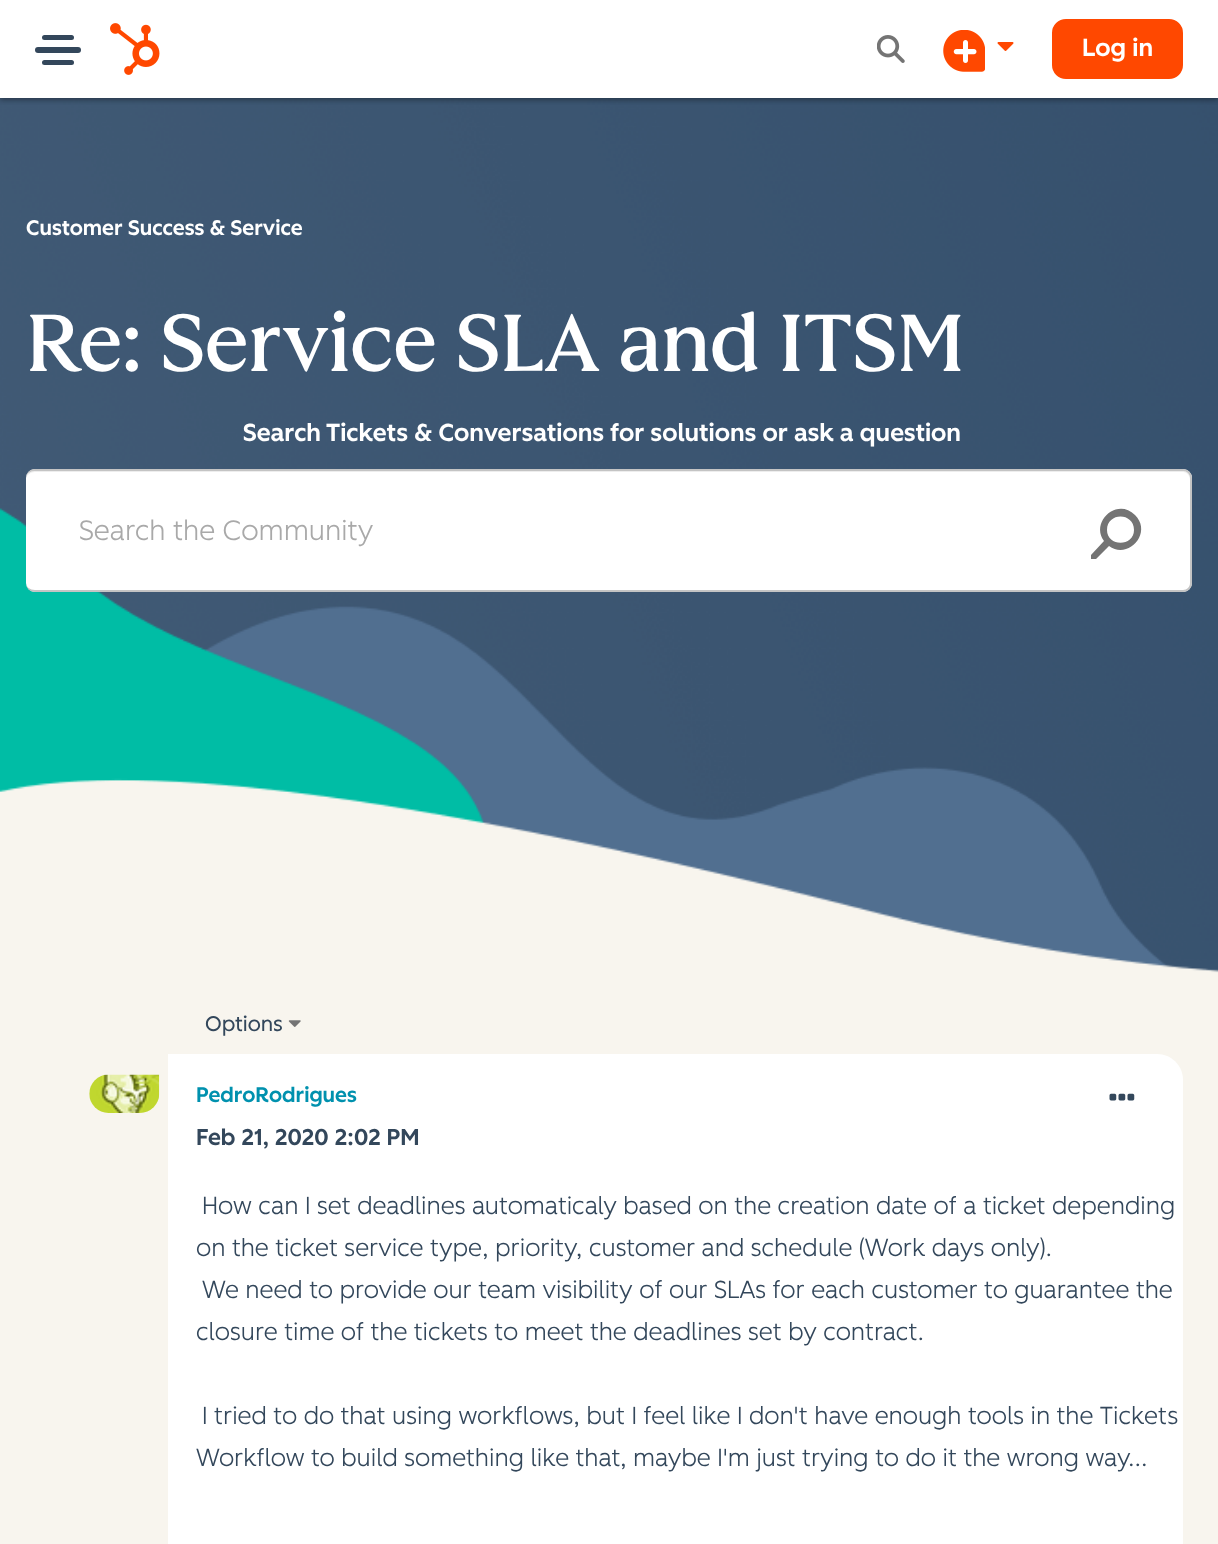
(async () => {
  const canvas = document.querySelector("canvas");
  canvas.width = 1218;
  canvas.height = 1544;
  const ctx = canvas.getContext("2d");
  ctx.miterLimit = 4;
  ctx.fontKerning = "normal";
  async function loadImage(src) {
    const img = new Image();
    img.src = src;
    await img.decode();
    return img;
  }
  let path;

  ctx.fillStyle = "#f8f5ee";
  ctx.fillRect(0, 0, 1218, 1544);
  ctx.drawImage(await loadImage("img/5.png"), 0, 98, 1218, 875);
  ctx.fillStyle = "rgba(0, 0, 0, 0.24)";
  ctx.filter = "blur(2.5px)";
  ctx.beginPath();
  ctx.rect(0, 2, 1218, 98);
  ctx.fill();
  ctx.filter = "none";
  ctx.fillStyle = "rgba(0, 0, 0, 0.12)";
  ctx.filter = "blur(2.5px)";
  ctx.beginPath();
  ctx.rect(0, 2, 1218, 98);
  ctx.fill();
  ctx.filter = "none";
  ctx.fillStyle = "#ffffff";
  ctx.fillRect(0, 0, 1218, 98);
  ctx.fillStyle = "#33475b";
  ctx.beginPath();
  ctx.roundRect(42, 35, 32, 5, 2.5);
  ctx.fill();
  ctx.beginPath();
  ctx.roundRect(35, 47, 46, 6, 3);
  ctx.fill();
  ctx.beginPath();
  ctx.roundRect(42, 60, 32, 5, 2.5);
  ctx.fill();
  ctx.drawImage(await loadImage("img/1.png"), 110, 23, 50, 52);
  ctx.drawImage(await loadImage("img/2.png"), 877, 35, 28, 28);
  ctx.drawImage(await loadImage("img/3.png"), 943, 30, 42, 42);
  ctx.drawImage(await loadImage("img/4.png"), 997, 42, 17, 9);
  ctx.fillStyle = "#ff4800";
  ctx.beginPath();
  ctx.roundRect(1053, 20, 129, 58, 13);
  ctx.fill();
  ctx.strokeStyle = "#ff4800";
  ctx.lineWidth = 2;
  ctx.stroke();
  ctx.fillStyle = "#ffffff";
  ctx.beginPath();
  ctx.roundRect(26, 469, 1166, 123, 9);
  ctx.fill();
  ctx.fillStyle = "rgba(0, 0, 0, 0.07)";
  path = new Path2D("M35 472H1183C1187 472 1190 476 1190 480V478C1190 474 1187 471 1183 471H35C30 471 26 474 26 478C27 475 31 472 35 472Z");
  ctx.fill(path);
  ctx.fillStyle = "#c4c4c4";
  path = new Path2D("M35 469H1183C1188 469 1192 473 1192 478V583C1192 588 1188 592 1183 592H35C30 592 26 588 26 583V478C26 473 30 469 35 469ZM35 471H1183C1187 471 1190 474 1190 478V583C1190 587 1187 590 1183 590H35C30 590 26 587 26 583V478C26 474 30 471 35 471Z");
  ctx.fill(path, "evenodd");
  ctx.fillStyle = "#747474";
  path = new Path2D("M1096 559H1091V555L1104 541C1090 522 1117 497 1135 515C1153 533 1128 560 1109 546ZM1107 530C1107 512 1134 512 1134 530C1134 547 1107 547 1107 530Z");
  ctx.fill(path, "evenodd");
  ctx.drawImage(await loadImage("img/6.png"), 288, 1020, 13, 7);
  ctx.drawImage(await loadImage("img/7.png"), 89, 1074, 71, 39);
  ctx.fillStyle = "#ffffff";
  path = new Path2D("M168 1054H1157C1171.5 1054 1183 1065.5 1183 1080V1544C1183 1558.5 1171.5 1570 1157 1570H194C179.5 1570 168 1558.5 168 1544Z");
  ctx.fill(path);
  ctx.drawImage(await loadImage("img/8.png"), 1109, 1093, 26, 8);
  ctx.font = "500 24.5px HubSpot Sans";
  ctx.fillText("Log in", 1082, 56);
  ctx.font = "500 21px HubSpot Sans";
  ctx.fillText("Customer Success & Service", 26, 235);
  ctx.font = "500 80.5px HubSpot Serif";
  ctx.fillText("Re: Service SLA and ITSM", 26, 371);
  ctx.font = "500 24.5px HubSpot Sans";
  ctx.fillText("Search", 243, 441);
  ctx.fillText("Tickets & Conversations for solutions or ask a question", 326, 441);
  ctx.font = "300 28px HubSpot Sans";
  ctx.fillStyle = "#a9a9a9";
  ctx.fillText("Search the Community", 79, 540);
  ctx.font = "21px HubSpot Sans";
  ctx.fillStyle = "#33475b";
  ctx.fillText("Options", 205, 1031);
  ctx.font = "500 21px HubSpot Sans";
  ctx.fillStyle = "#0091ae";
  ctx.fillText("PedroRodrigues", 196, 1102);
  ctx.font = "500 22.75px HubSpot Sans";
  ctx.fillStyle = "#33475b";
  ctx.fillText("Feb 21, 2020 2:02 PM", 196, 1145);
  ctx.font = "300 24.5px HubSpot Sans";
  for (const [text, x, y] of [
    ["How can I set deadlines automaticaly based on the creation date of a ticket depending", 202, 1214],
    ["on the ticket service type, priority, customer and schedule (Work days only).", 196, 1256],
    ["We need to provide our team visibility of our SLAs for each customer to guarantee the", 202, 1298],
    ["closure time of the tickets to meet the deadlines set by contract.", 196, 1340],
    ["I tried to do that using workflows, but I feel like I don't have enough tools in the Tickets", 202, 1424],
    ["Workflow to build something like that, maybe I'm just trying to do it the wrong way...", 196, 1466],
  ]) {
    ctx.fillText(text, x, y);
  }
})();
